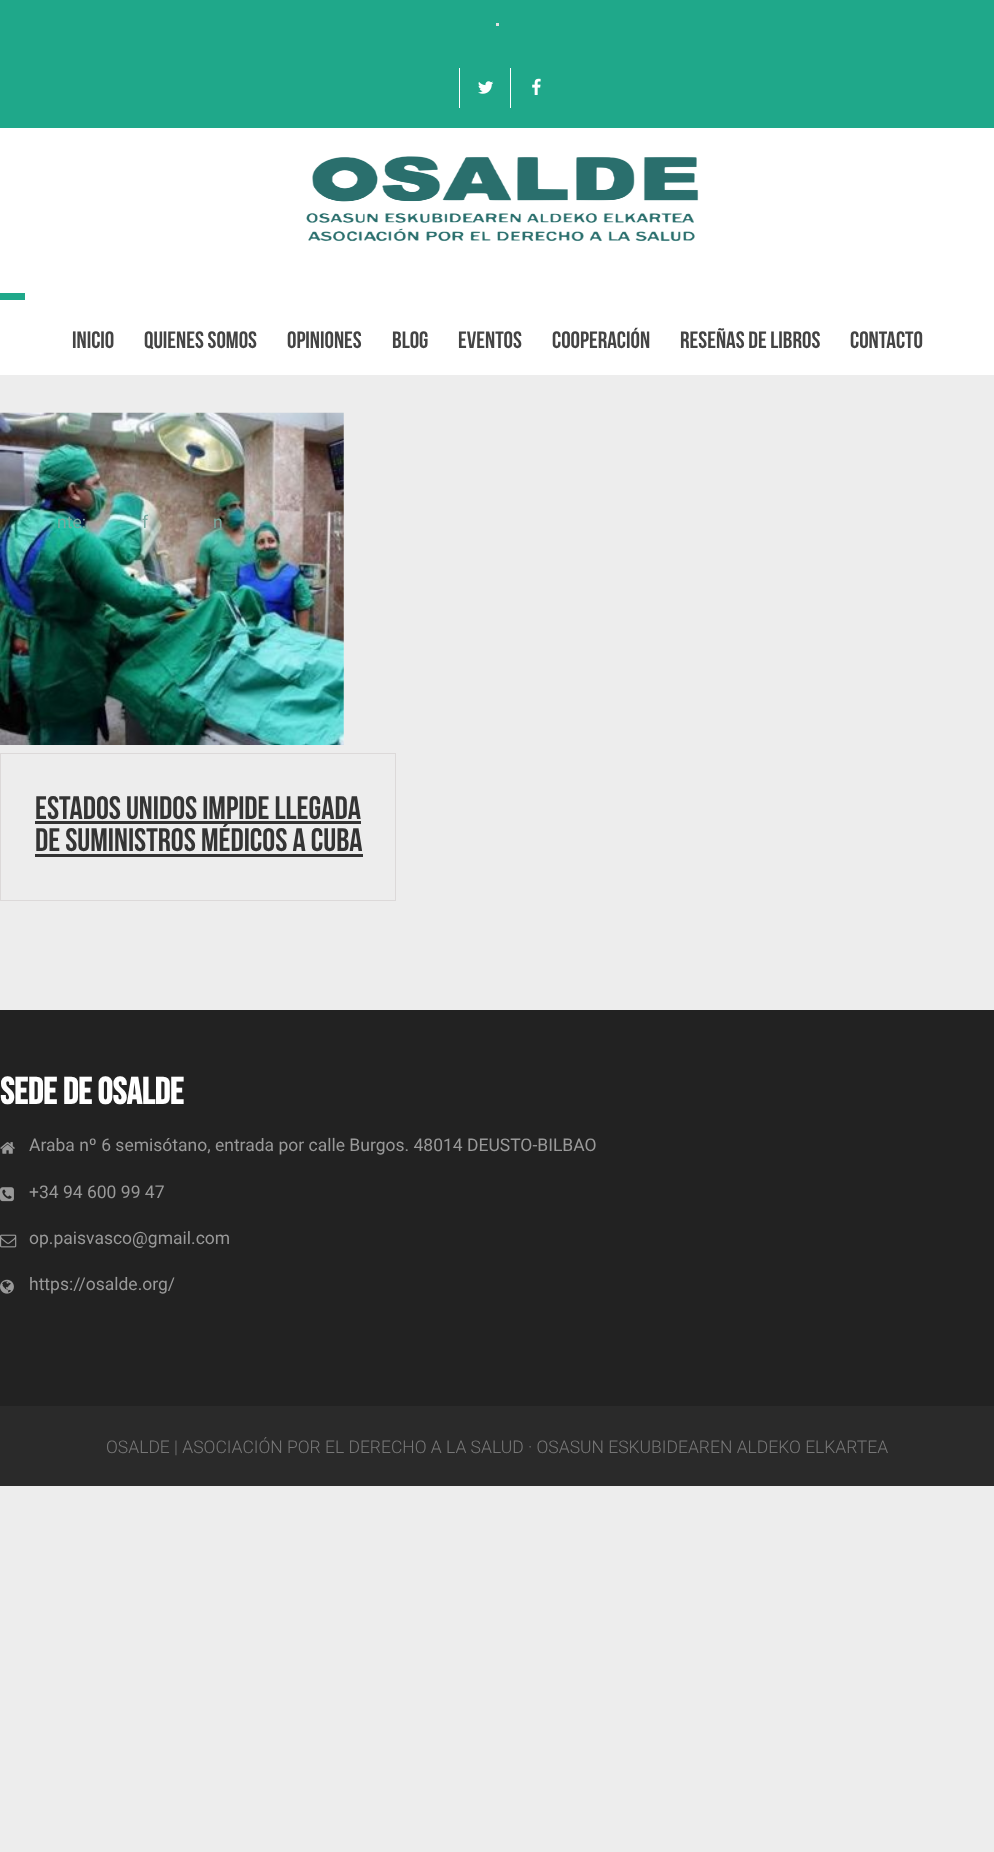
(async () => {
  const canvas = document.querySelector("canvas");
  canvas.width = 994;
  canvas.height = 1852;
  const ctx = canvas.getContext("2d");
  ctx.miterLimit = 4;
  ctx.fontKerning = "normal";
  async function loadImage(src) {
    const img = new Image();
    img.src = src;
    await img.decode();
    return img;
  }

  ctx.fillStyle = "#ededed";
  ctx.fillRect(0, 0, 994, 1852);
  for (const [x, y, w, h, color] of [
    [0, 0, 994, 128, "#1fa88a"],
    [496, 23, 3, 3, "#e1e1e1"],
    [459, 68, 1, 40, "#ffffff"],
  ]) {
    ctx.fillStyle = color;
    ctx.fillRect(x, y, w, h);
  }
  ctx.drawImage(await loadImage("img/1.png"), 478, 81, 16, 13);
  ctx.fillRect(510, 68, 1, 40);
  ctx.drawImage(await loadImage("img/2.png"), 532, 78, 9, 17);
  ctx.fillRect(0, 128, 994, 247);
  ctx.drawImage(await loadImage("img/3.png"), 306, 156, 393, 86);
  ctx.fillStyle = "#1fa88a";
  ctx.fillRect(0, 293, 25, 7);
  ctx.drawImage(await loadImage("img/4.png"), 0, 412, 344, 333);
  ctx.strokeStyle = "#dcd9d9";
  ctx.strokeRect(0.5, 753.5, 395, 147);
  for (const [x, y, w, h, color] of [
    [35, 821, 326, 3, "#343434"],
    [35, 854, 328, 3, "#343434"],
    [0, 1010, 994, 396, "#222222"],
  ]) {
    ctx.fillStyle = color;
    ctx.fillRect(x, y, w, h);
  }
  ctx.drawImage(await loadImage("img/5.png"), 0, 1142, 15, 12);
  ctx.drawImage(await loadImage("img/6.png"), 0, 1187, 14, 15);
  ctx.drawImage(await loadImage("img/7.png"), 0, 1234, 17, 14);
  ctx.drawImage(await loadImage("img/8.png"), 0, 1279, 14, 15);
  ctx.fillStyle = "#2a2a2a";
  ctx.fillRect(0, 1406, 994, 80);
  ctx.font = "23.75px Bebas Neue";
  ctx.fillStyle = "#444444";
  for (const [text, x, y] of [
    ["Inicio", 72, 348],
    ["Quienes Somos", 144, 348],
    ["OPINIONES", 287, 348],
    ["BLOG", 392, 348],
    ["Eventos", 458, 348],
    ["Cooperación", 552, 348],
    ["Reseñas de libros", 680, 348],
    ["Contacto", 850, 348],
  ]) {
    ctx.fillText(text, x, y);
  }
  ctx.font = "17.5px Roboto";
  ctx.fillStyle = "#78a99f";
  for (const [text, x, y] of [
    ["nte:", 57, 528],
    ["f", 142, 528],
    ["n", 213, 528],
  ]) {
    ctx.fillText(text, x, y);
  }
  ctx.font = "32.5px Bebas Neue";
  ctx.fillStyle = "#343434";
  ctx.fillText("Estados Unidos impide llegada", 35, 819);
  ctx.fillText("de suministros médicos a Cuba", 35, 851);
  ctx.font = "bold 37.5px Bebas Neue";
  ctx.fillStyle = "#ffffff";
  ctx.fillText("Sede de OSALDE", 0, 1104);
  ctx.font = "17.5px Roboto";
  ctx.fillStyle = "#999999";
  for (const [text, x, y] of [
    ["Araba nº 6 semisótano, entrada por calle Burgos. 48014 DEUSTO-BILBAO", 29, 1151],
    ["+34 94 600 99 47", 29, 1198],
    ["op.paisvasco@gmail.com", 29, 1244],
    ["https://osalde.org/", 29, 1290],
  ]) {
    ctx.fillText(text, x, y);
  }
  ctx.font = "300 17.5px Roboto";
  ctx.fillStyle = "#777777";
  ctx.fillText("OSALDE | ASOCIACIÓN POR EL DERECHO A LA SALUD · OSASUN ESKUBIDEAREN ALDEKO ELKARTEA", 106, 1453);
})();
